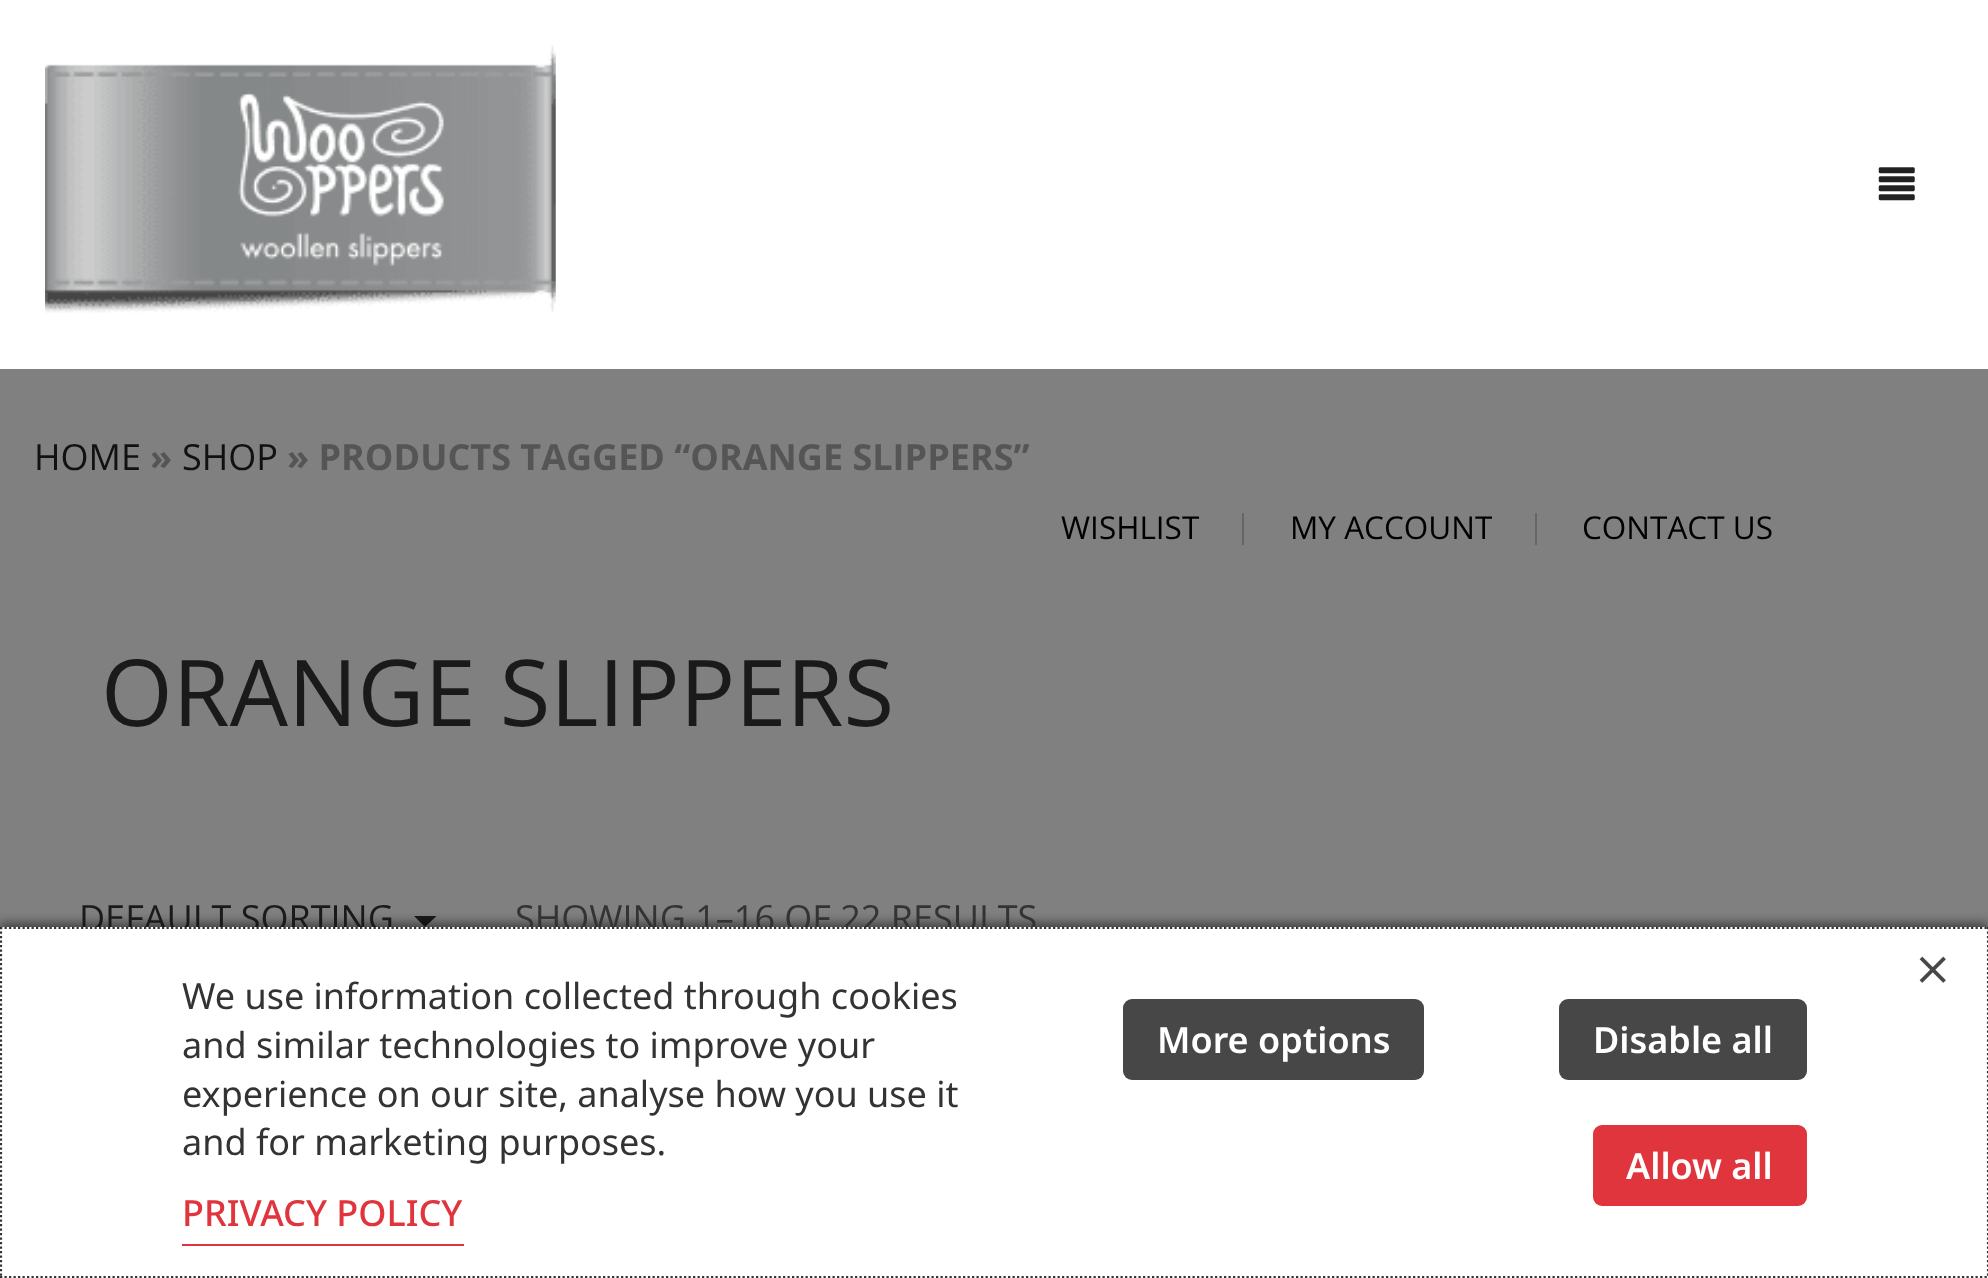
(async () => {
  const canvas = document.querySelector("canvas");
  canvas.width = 1988;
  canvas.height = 1278;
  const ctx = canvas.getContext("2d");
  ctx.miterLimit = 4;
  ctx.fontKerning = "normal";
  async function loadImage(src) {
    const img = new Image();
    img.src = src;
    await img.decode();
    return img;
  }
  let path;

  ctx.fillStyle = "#808080";
  ctx.fillRect(0, 0, 1988, 1278);
  ctx.fillStyle = "#ffffff";
  ctx.fillRect(0, 0, 1988, 369);
  ctx.drawImage(await loadImage("img/1.png"), 45, 45, 511, 268);
  ctx.drawImage(await loadImage("img/2.png"), 1878, 167, 37, 34);
  ctx.fillStyle = "#666666";
  ctx.fillRect(1242, 513, 2, 32);
  ctx.fillRect(1535, 513, 2, 32);
  ctx.fillStyle = "#1a1a1a";
  path = new Path2D("M414 916H436.5L425 927Z");
  ctx.fill(path);
  ctx.fillStyle = "rgba(0, 0, 0, 0.5)";
  ctx.filter = "blur(5.5px)";
  ctx.beginPath();
  ctx.rect(0, 923, 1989, 351);
  ctx.fill();
  ctx.filter = "none";
  ctx.font = "36px Open Sans";
  ctx.fillStyle = "#111111";
  ctx.fillText("HOME", 34, 470);
  ctx.font = "bold 36px Open Sans";
  ctx.fillStyle = "#555555";
  ctx.fillText("»", 150, 470);
  ctx.font = "36px Open Sans";
  ctx.fillStyle = "#111111";
  ctx.fillText("SHOP", 182, 470);
  ctx.font = "bold 36px Open Sans";
  ctx.fillStyle = "#555555";
  ctx.fillText("» PRODUCTS TAGGED “ORANGE SLIPPERS”", 287, 470);
  ctx.font = "31.5px Open Sans";
  ctx.fillStyle = "#000000";
  for (const [text, x, y] of [
    ["WISHLIST", 1061, 539],
    ["MY ACCOUNT", 1290, 539],
    ["CONTACT US", 1582, 539],
  ]) {
    ctx.fillText(text, x, y);
  }
  ctx.font = "92.25px Open Sans";
  ctx.fillStyle = "#1a1a1a";
  ctx.fillText("ORANGE SLIPPERS", 101, 726);
  ctx.font = "36px Open Sans";
  ctx.fillText("DEFAULT SORTING", 79, 931);
  ctx.fillStyle = "#333333";
  ctx.fillText("SHOWING 1–16 OF 22 RESULTS", 515, 931);
  ctx.fillStyle = "#ffffff";
  ctx.fillRect(0, 927, 1988, 351);
  path = new Path2D("M0 928H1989");
  ctx.strokeStyle = "#333333";
  ctx.lineWidth = 2.2;
  ctx.setLineDash([2.25, 2.25]);
  ctx.stroke(path);
  path = new Path2D("M1988 927V1278");
  ctx.stroke(path);
  path = new Path2D("M0 1277H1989");
  ctx.stroke(path);
  path = new Path2D("M1 927V1278");
  ctx.stroke(path);
  ctx.drawImage(await loadImage("img/3.png"), 1919, 956, 27, 27);
  ctx.font = "36px Noto Sans";
  ctx.fillStyle = "#333333";
  for (const [text, x, y] of [
    ["We use information collected through cookies", 182, 1009],
    ["and similar technologies to improve your", 182, 1058],
    ["experience on our site, analyse how you use it", 182, 1107],
    ["and for marketing purposes.", 182, 1155],
  ]) {
    ctx.fillText(text, x, y);
  }
  ctx.font = "500 36px Noto Sans";
  ctx.fillStyle = "#e0353c";
  ctx.fillText("PRIVACY POLICY", 182, 1226);
  ctx.fillRect(182, 1244, 282, 2);
  ctx.fillStyle = "#474747";
  ctx.beginPath();
  ctx.roundRect(1123, 999, 301, 81, 9);
  ctx.fill();
  ctx.font = "600 36px Noto Sans";
  ctx.fillStyle = "#ffffff";
  ctx.fillText("More options", 1157, 1053);
  ctx.fillStyle = "#474747";
  ctx.beginPath();
  ctx.roundRect(1559, 999, 248, 81, 9);
  ctx.fill();
  ctx.fillStyle = "#ffffff";
  ctx.fillText("Disable all", 1593, 1053);
  ctx.fillStyle = "#e0353c";
  ctx.beginPath();
  ctx.roundRect(1593, 1125, 214, 81, 9);
  ctx.fill();
  ctx.fillStyle = "#ffffff";
  ctx.fillText("Allow all", 1626, 1179);
})();
